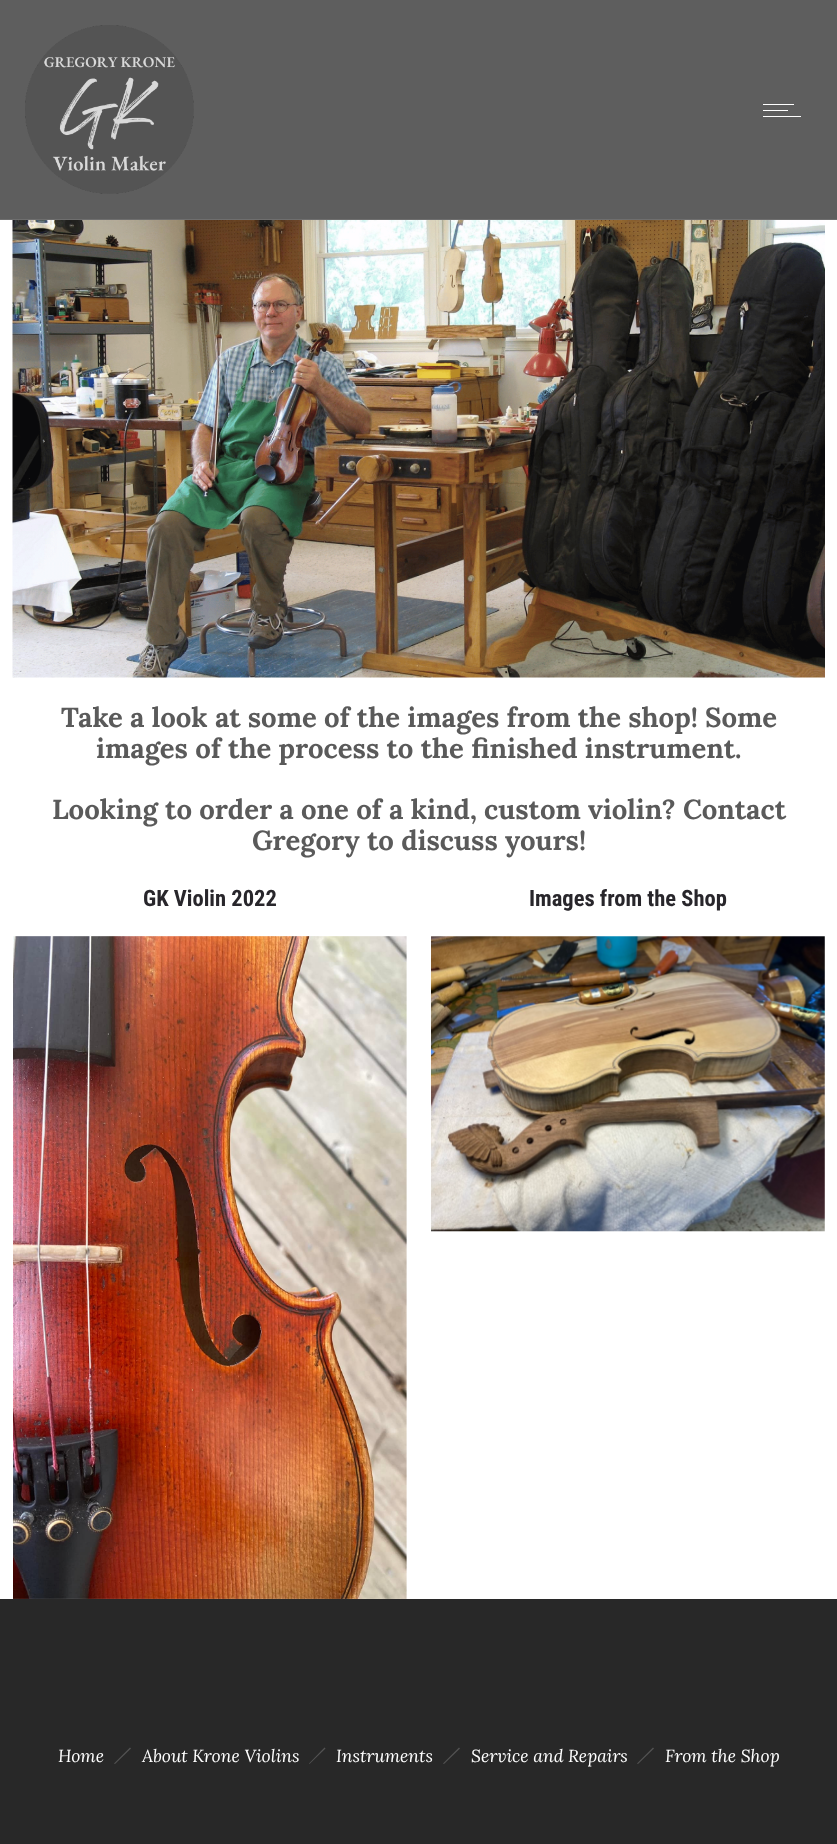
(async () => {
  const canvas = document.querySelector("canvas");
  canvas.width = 837;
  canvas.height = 1844;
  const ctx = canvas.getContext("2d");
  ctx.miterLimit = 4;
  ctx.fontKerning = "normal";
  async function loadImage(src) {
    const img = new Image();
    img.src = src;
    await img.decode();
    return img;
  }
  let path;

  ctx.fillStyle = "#ffffff";
  ctx.fillRect(0, 0, 837, 1844);
  ctx.fillStyle = "#5e5e5e";
  ctx.fillRect(0, 0, 837, 219);
  ctx.fillStyle = "#6e6e6e";
  ctx.fillRect(0, 219, 837, 1);
  ctx.drawImage(await loadImage("img/1.png"), 25, 25, 169, 169);
  for (const [x, y, w, h, color] of [
    [763, 104, 31, 1, "#ffffff"],
    [763, 110, 25, 1, "#ffffff"],
    [763, 116, 38, 1, "#ffffff"],
  ]) {
    ctx.fillStyle = color;
    ctx.fillRect(x, y, w, h);
  }
  ctx.drawImage(await loadImage("img/2.png"), 12, 220, 813, 458);
  ctx.drawImage(await loadImage("img/3.png"), 13, 936, 394, 663);
  ctx.drawImage(await loadImage("img/4.png"), 431, 936, 394, 296);
  ctx.fillStyle = "#282828";
  ctx.fillRect(0, 1599, 837, 245);
  ctx.fillStyle = "#535353";
  path = new Path2D("M130 1747.5L131 1748.5L115 1764L114 1763.5Z");
  ctx.fill(path);
  path = new Path2D("M324.5 1747.5L325.5 1748.5L309.5 1764L309 1763.5Z");
  ctx.fill(path);
  path = new Path2D("M459 1747.5L460 1748.5L444 1764L443 1763.5Z");
  ctx.fill(path);
  path = new Path2D("M653 1747.5L654 1748.5L638 1764L637 1763.5Z");
  ctx.fill(path);
  ctx.font = "bold 27.5px Lora";
  ctx.fillStyle = "#5a5a5a";
  for (const [text, x, y] of [
    ["Take a look at some of the images from the shop! Some", 61, 727],
    ["images of the process to the finished instrument.", 96, 758],
    ["Looking to order a one of a kind, custom violin? Contact", 52, 819],
    ["Gregory to discuss yours!", 252, 850],
  ]) {
    ctx.fillText(text, x, y);
  }
  ctx.font = "bold 22.5px Roboto Condensed";
  ctx.fillStyle = "#28262b";
  ctx.fillText("GK Violin 2022", 143, 906);
  ctx.fillText("Images from the Shop", 529, 906);
  ctx.font = "italic 17.5px Lora";
  ctx.fillStyle = "#ffffff";
  for (const [text, x, y] of [
    ["Home", 58, 1762],
    ["About Krone Violins", 142, 1762],
    ["Instruments", 336, 1762],
    ["Service and Repairs", 471, 1762],
    ["From the Shop", 665, 1762],
  ]) {
    ctx.fillText(text, x, y);
  }
})();
